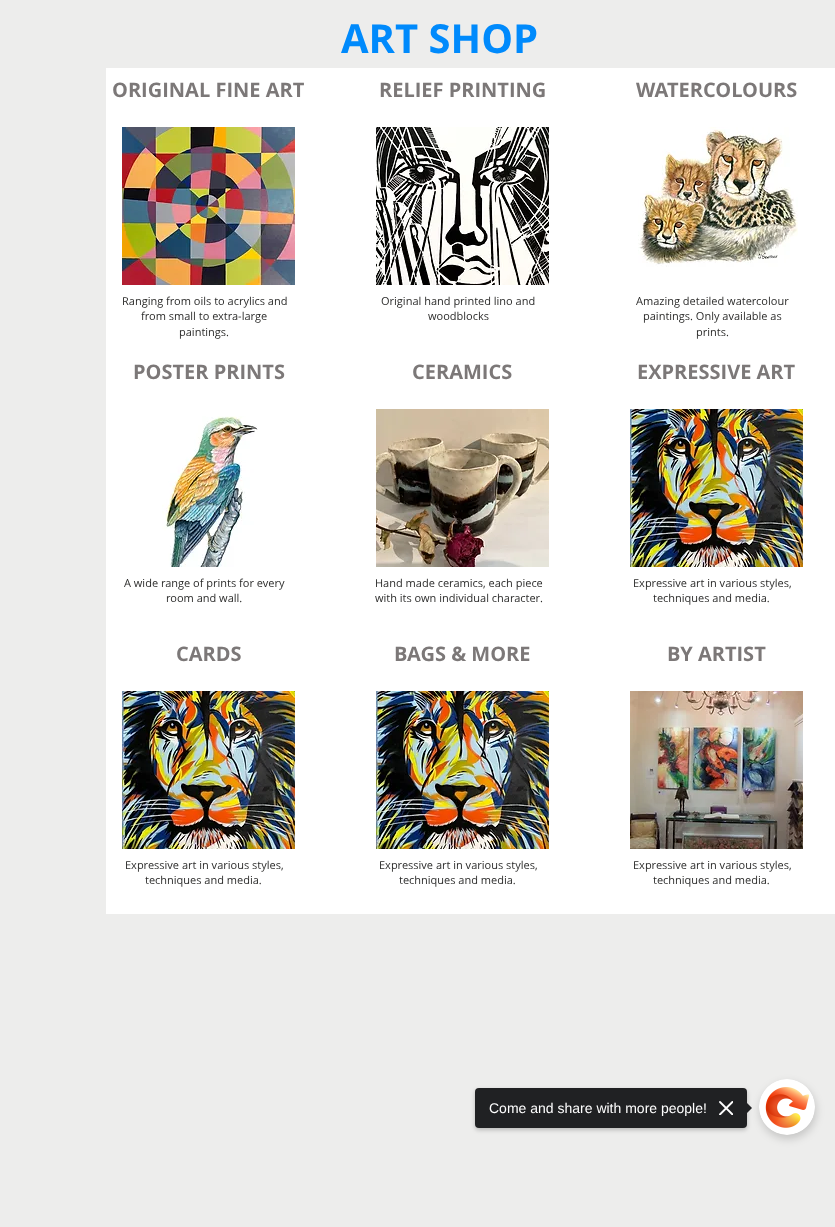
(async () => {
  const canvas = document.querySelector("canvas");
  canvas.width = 835;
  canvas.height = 1227;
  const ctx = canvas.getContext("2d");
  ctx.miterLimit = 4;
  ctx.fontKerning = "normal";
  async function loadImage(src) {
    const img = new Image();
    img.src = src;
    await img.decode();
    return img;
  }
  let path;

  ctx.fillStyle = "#ededec";
  ctx.fillRect(0, 0, 835, 1227);
  ctx.fillStyle = "#ffffff";
  ctx.fillRect(106, 68, 254, 846);
  ctx.drawImage(await loadImage("img/1.png"), 122, 127, 173, 158);
  ctx.drawImage(await loadImage("img/2.png"), 162, 416, 96, 151);
  ctx.drawImage(await loadImage("img/3.png"), 122, 691, 173, 158);
  ctx.fillRect(360, 68, 254, 846);
  ctx.drawImage(await loadImage("img/4.png"), 376, 127, 173, 158);
  ctx.drawImage(await loadImage("img/5.png"), 376, 409, 173, 158);
  ctx.drawImage(await loadImage("img/3.png"), 376, 691, 173, 158);
  ctx.fillRect(614, 68, 221, 846);
  ctx.drawImage(await loadImage("img/6.png"), 638, 127, 160, 140);
  ctx.drawImage(await loadImage("img/3.png"), 630, 409, 173, 158);
  ctx.drawImage(await loadImage("img/7.png"), 630, 691, 173, 158);
  ctx.fillStyle = "rgba(0, 0, 0, 0.17)";
  ctx.filter = "blur(4.5px)";
  ctx.beginPath();
  ctx.roundRect(760, 1083, 56, 56, 28);
  ctx.fill();
  ctx.filter = "none";
  ctx.fillStyle = "rgba(0, 0, 0, 0.22)";
  ctx.filter = "blur(2px)";
  ctx.beginPath();
  ctx.roundRect(475, 1090, 272, 40, 4);
  ctx.fill();
  ctx.filter = "none";
  ctx.fillStyle = "#202123";
  ctx.beginPath();
  ctx.roundRect(475, 1088, 272, 40, 4);
  ctx.fill();
  ctx.drawImage(await loadImage("img/8.png"), 719, 1101, 14, 14);
  path = new Path2D("M745 1115V1101L752 1108Z");
  ctx.fill(path);
  ctx.drawImage(await loadImage("img/9.png"), 759, 1079, 56, 56);
  ctx.font = "bold 40px Open Sans";
  ctx.fillStyle = "#008afc";
  ctx.fillText("ART SHOP", 341, 53);
  ctx.font = "bold 20px Open Sans";
  ctx.fillStyle = "#7c7878";
  ctx.fillText("ORIGINAL FINE ART", 112, 97);
  ctx.font = "11px Open Sans";
  ctx.fillStyle = "#2c2c2b";
  for (const [text, x, y] of [
    ["Ranging from oils to acrylics and", 122, 305],
    ["from small to extra-large", 141, 320],
    ["paintings.", 179, 336],
  ]) {
    ctx.fillText(text, x, y);
  }
  ctx.font = "bold 20px Open Sans";
  ctx.fillStyle = "#7c7878";
  ctx.fillText("POSTER PRINTS", 133, 379);
  ctx.font = "11px Open Sans";
  ctx.fillStyle = "#2c2c2b";
  ctx.fillText("A wide range of prints for every", 124, 587);
  ctx.fillText("room and wall.", 166, 602);
  ctx.font = "bold 20px Open Sans";
  ctx.fillStyle = "#7c7878";
  ctx.fillText("CARDS", 176, 661);
  ctx.font = "11px Open Sans";
  ctx.fillStyle = "#2c2c2b";
  ctx.fillText("Expressive art in various styles,", 125, 869);
  ctx.fillText("techniques and media.", 145, 884);
  ctx.font = "bold 20px Open Sans";
  ctx.fillStyle = "#7c7878";
  ctx.fillText("RELIEF PRINTING", 379, 97);
  ctx.font = "11px Open Sans";
  ctx.fillStyle = "#2c2c2b";
  ctx.fillText("Original hand printed lino and", 381, 305);
  ctx.fillText("woodblocks", 428, 320);
  ctx.font = "bold 20px Open Sans";
  ctx.fillStyle = "#7c7878";
  ctx.fillText("CERAMICS", 412, 379);
  ctx.font = "11px Open Sans";
  ctx.fillStyle = "#2c2c2b";
  ctx.fillText("Hand made ceramics, each piece", 375, 587);
  ctx.fillText("with its own individual character.", 375, 602);
  ctx.font = "bold 20px Open Sans";
  ctx.fillStyle = "#7c7878";
  ctx.fillText("BAGS & MORE", 394, 661);
  ctx.font = "11px Open Sans";
  ctx.fillStyle = "#2c2c2b";
  ctx.fillText("Expressive art in various styles,", 379, 869);
  ctx.fillText("techniques and media.", 399, 884);
  ctx.font = "bold 20px Open Sans";
  ctx.fillStyle = "#7c7878";
  ctx.fillText("WATERCOLOURS", 636, 97);
  ctx.font = "11px Open Sans";
  ctx.fillStyle = "#2c2c2b";
  for (const [text, x, y] of [
    ["Amazing detailed watercolour", 636, 305],
    ["paintings. Only available as", 643, 320],
    ["prints.", 696, 336],
  ]) {
    ctx.fillText(text, x, y);
  }
  ctx.font = "bold 20px Open Sans";
  ctx.fillStyle = "#7c7878";
  ctx.fillText("EXPRESSIVE ART", 637, 379);
  ctx.font = "11px Open Sans";
  ctx.fillStyle = "#2c2c2b";
  ctx.fillText("Expressive art in various styles,", 633, 587);
  ctx.fillText("techniques and media.", 653, 602);
  ctx.font = "bold 20px Open Sans";
  ctx.fillStyle = "#7c7878";
  ctx.fillText("BY ARTIST", 667, 661);
  ctx.font = "11px Open Sans";
  ctx.fillStyle = "#2c2c2b";
  ctx.fillText("Expressive art in various styles,", 633, 869);
  ctx.fillText("techniques and media.", 653, 884);
  ctx.font = "14px Liberation Sans";
  ctx.fillStyle = "#ffffff";
  ctx.fillText("Come and share with more people!", 489, 1113);
})();
